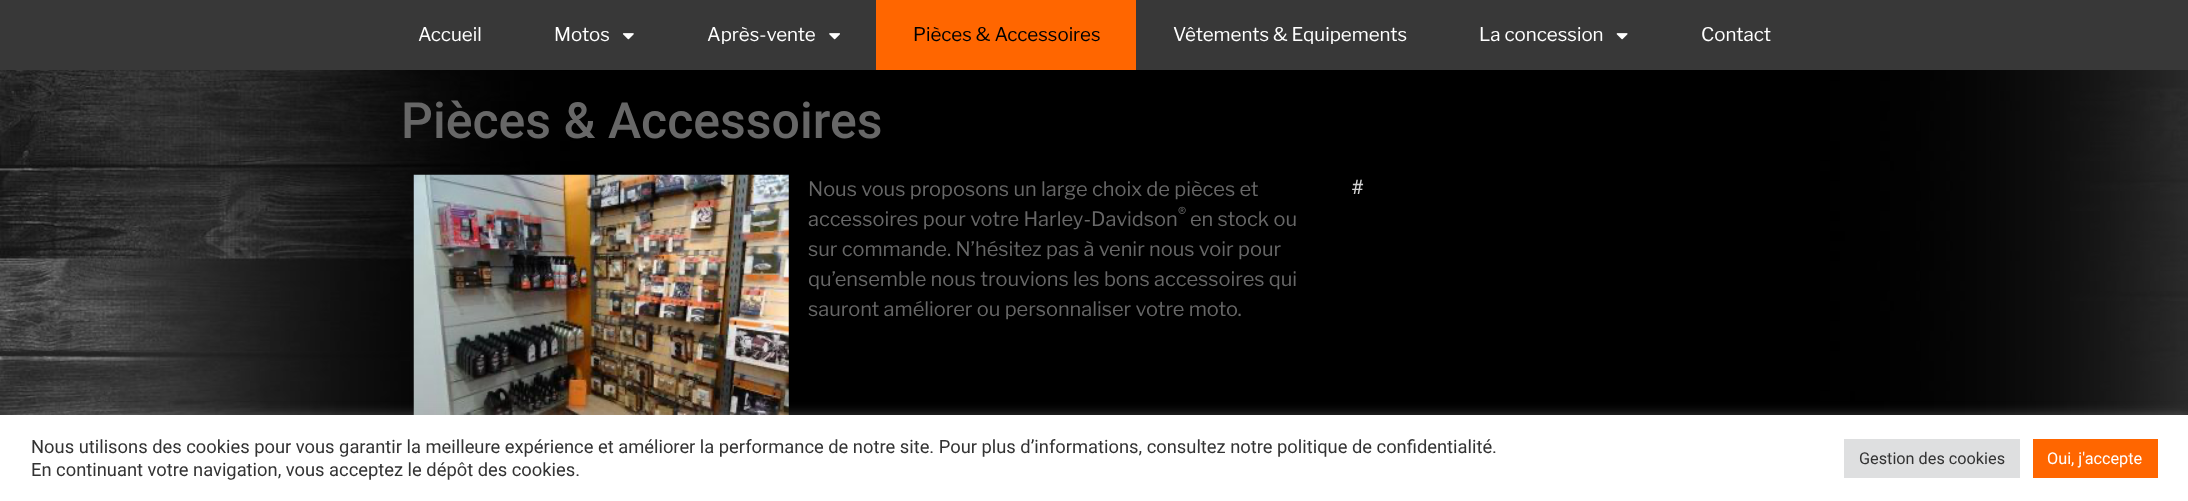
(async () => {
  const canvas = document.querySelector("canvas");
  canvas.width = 2188;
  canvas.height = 501;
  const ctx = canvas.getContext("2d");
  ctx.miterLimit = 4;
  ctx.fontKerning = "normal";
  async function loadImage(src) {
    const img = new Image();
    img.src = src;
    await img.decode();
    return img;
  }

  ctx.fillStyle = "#ffffff";
  ctx.fillRect(0, 0, 2188, 501);
  ctx.drawImage(await loadImage("img/1.png"), 0, 70, 2188, 345);
  ctx.fillStyle = "#383838";
  ctx.fillRect(0, 0, 2188, 70);
  ctx.drawImage(await loadImage("img/2.png"), 622, 33, 12, 7);
  ctx.drawImage(await loadImage("img/3.png"), 829, 33, 11, 7);
  ctx.fillStyle = "#ff6600";
  ctx.fillRect(876, 0, 260, 70);
  ctx.drawImage(await loadImage("img/4.png"), 1616, 33, 12, 7);
  ctx.drawImage(await loadImage("img/5.png"), 413, 174, 376, 241);
  ctx.fillStyle = "rgba(172, 171, 171, 0.3)";
  ctx.filter = "blur(6px)";
  ctx.beginPath();
  ctx.rect(0, 414, 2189, 86);
  ctx.fill();
  ctx.filter = "none";
  for (const [x, y, w, h, color] of [
    [0, 415, 2188, 86, "#ffffff"],
    [1844, 439, 176, 39, "#dedfe0"],
    [2033, 439, 125, 39, "#ff6600"],
  ]) {
    ctx.fillStyle = color;
    ctx.fillRect(x, y, w, h);
  }
  ctx.font = "18.75px Libre Franklin";
  ctx.fillStyle = "#ffffff";
  for (const [text, x, y] of [
    ["Accueil", 418, 41],
    ["Motos", 554, 41],
    ["Après-vente", 707, 41],
  ]) {
    ctx.fillText(text, x, y);
  }
  ctx.fillStyle = "#000000";
  ctx.fillText("Pièces & Accessoires", 913, 41);
  ctx.fillStyle = "#ffffff";
  for (const [text, x, y] of [
    ["Vêtements & Equipements", 1173, 41],
    ["La concession", 1479, 41],
    ["Contact", 1701, 41],
  ]) {
    ctx.fillText(text, x, y);
  }
  ctx.font = "500 50px Roboto";
  ctx.fillStyle = "#676767";
  ctx.fillText("Pièces & Accessoires", 401, 138);
  ctx.font = "20px Libre Franklin";
  ctx.fillText("Nous vous proposons un large choix de pièces et", 808, 196);
  ctx.font = "15px Libre Franklin";
  ctx.fillText("®", 1178, 218);
  ctx.font = "20px Libre Franklin";
  for (const [text, x, y] of [
    ["accessoires pour votre Harley-Davidson", 808, 226],
    ["en stock ou", 1190, 226],
    ["sur commande. N’hésitez pas à venir nous voir pour", 808, 256],
    ["qu’ensemble nous trouvions les bons accessoires qui", 808, 286],
    ["sauront améliorer ou personnaliser votre moto.", 808, 316],
  ]) {
    ctx.fillText(text, x, y);
  }
  ctx.font = "20px Roboto";
  ctx.fillStyle = "#d2d2d2";
  ctx.fillText("#", 1351, 194);
  ctx.font = "18.33px Roboto";
  ctx.fillStyle = "#333333";
  ctx.fillText("Nous utilisons des cookies pour vous garantir la meilleure expérience et améliorer la performance de notre site. Pour plus d’informations, consultez notre politique de confidentialité.", 31, 453);
  ctx.fillText("En continuant votre navigation, vous acceptez le dépôt des cookies.", 31, 476);
  ctx.font = "16.25px Roboto";
  ctx.fillText("Gestion des cookies", 1859, 464);
  ctx.fillStyle = "#ffffff";
  ctx.fillText("Oui, j'accepte", 2047, 464);
})();
